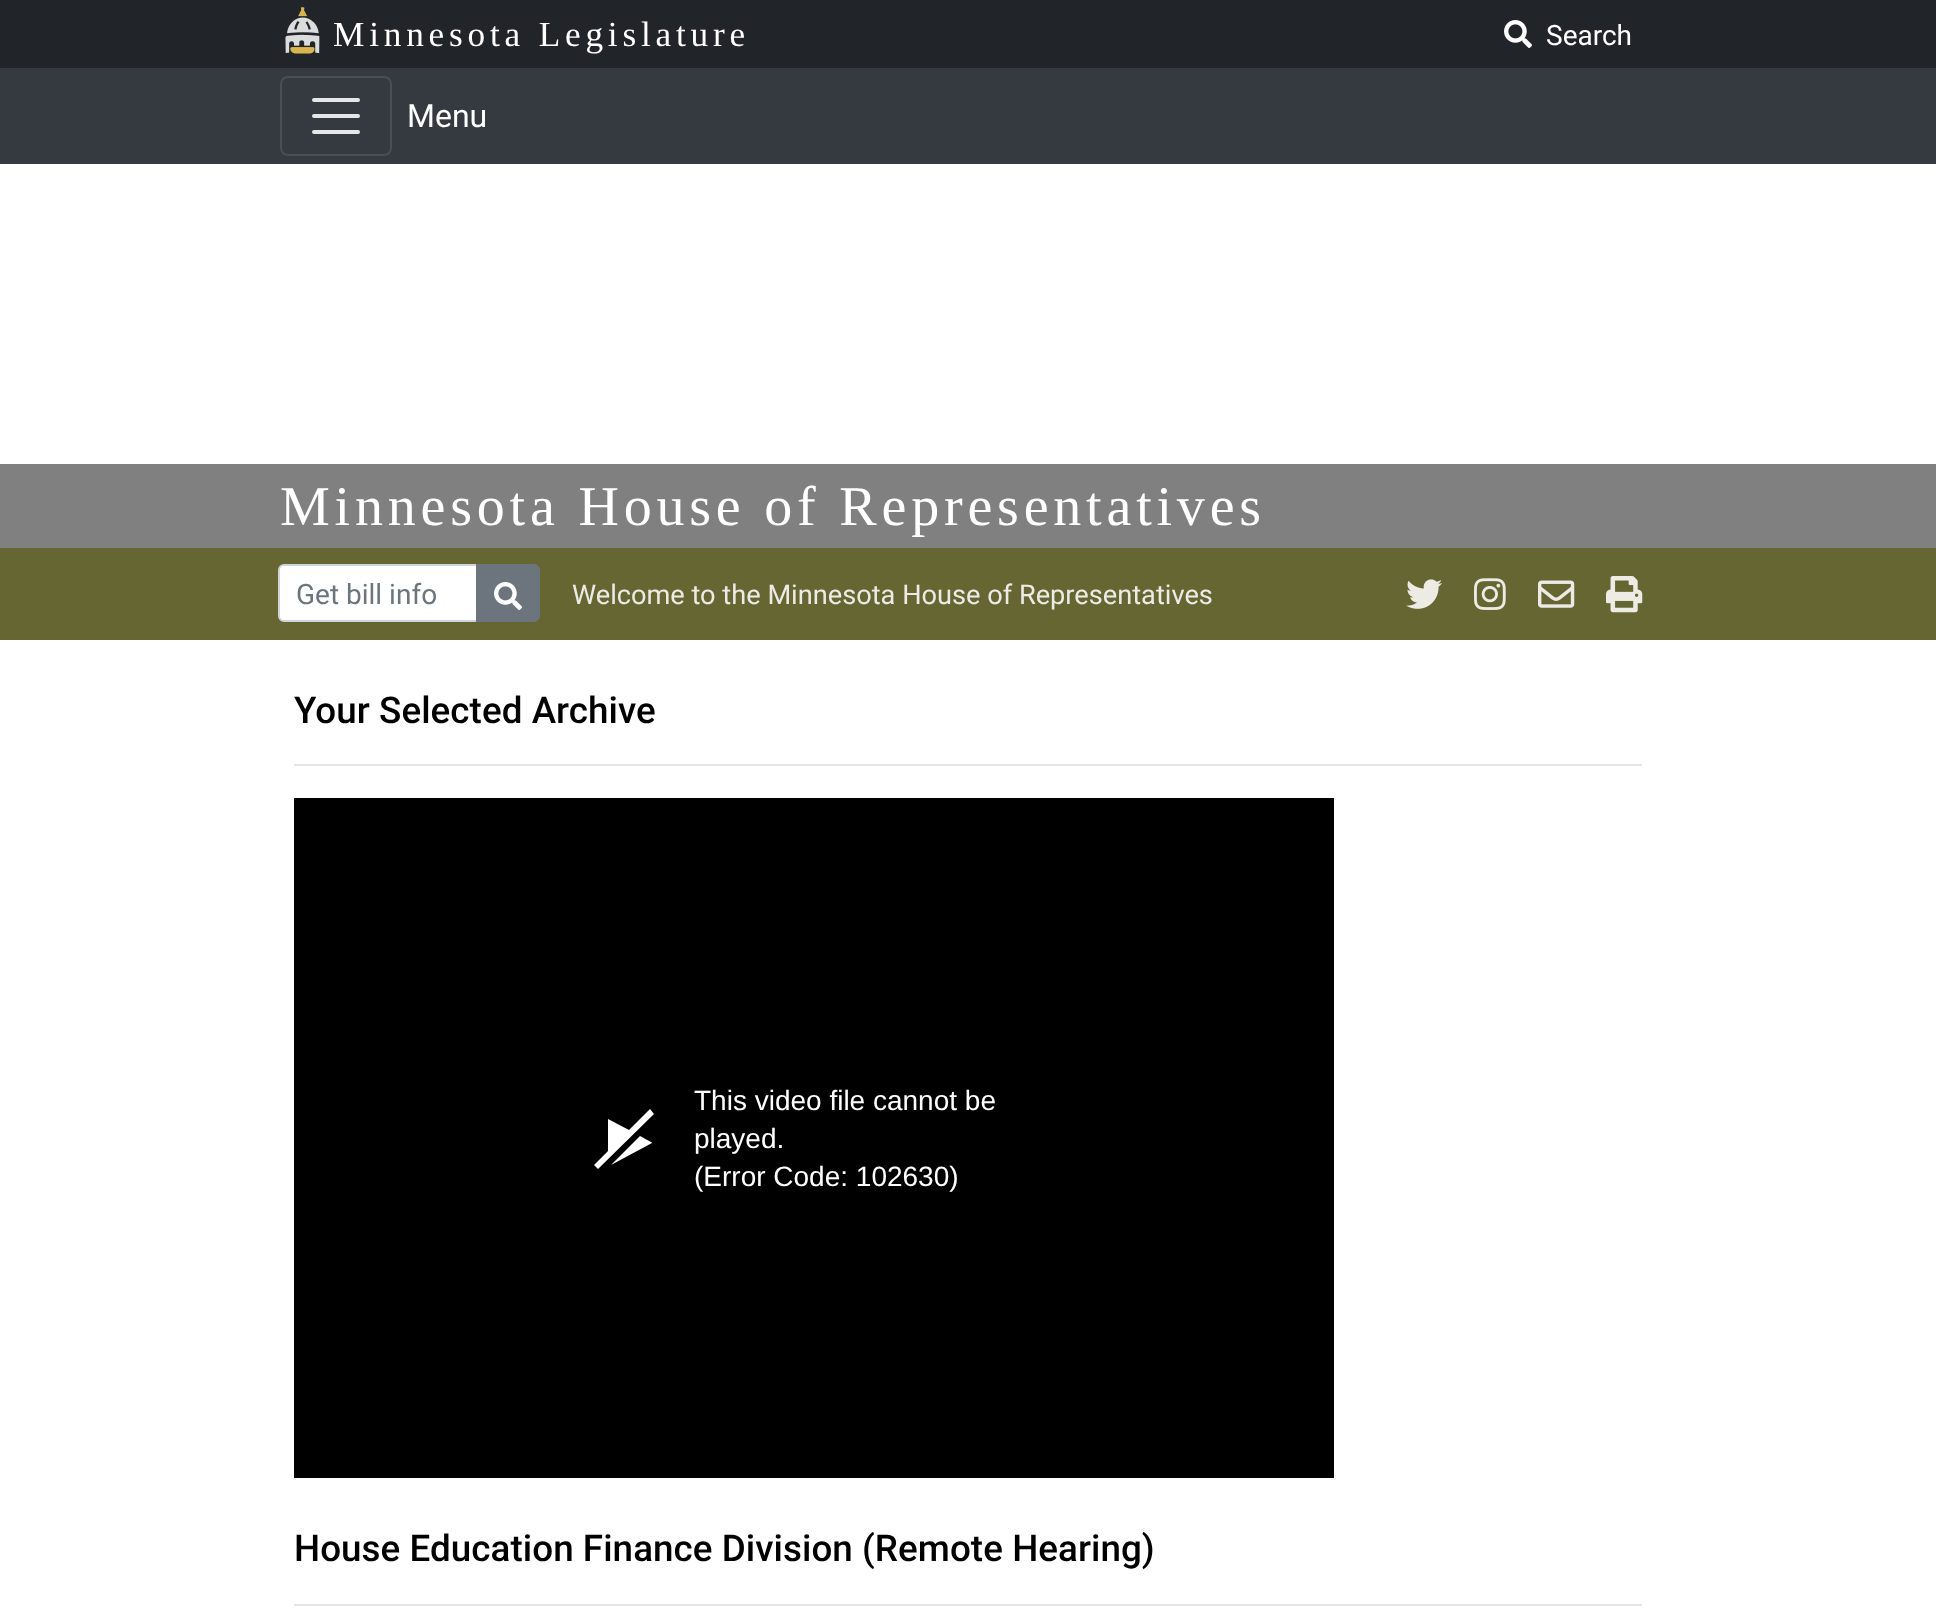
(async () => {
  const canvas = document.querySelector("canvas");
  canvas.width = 1936;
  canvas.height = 1608;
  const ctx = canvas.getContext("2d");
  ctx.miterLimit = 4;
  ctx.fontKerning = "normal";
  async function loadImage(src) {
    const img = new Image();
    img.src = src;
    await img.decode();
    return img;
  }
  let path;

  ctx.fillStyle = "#ffffff";
  ctx.fillRect(0, 0, 1936, 1608);
  ctx.fillStyle = "#212529";
  ctx.fillRect(0, 0, 1936, 68);
  ctx.drawImage(await loadImage("img/1.png"), 285, 7, 35, 47);
  ctx.drawImage(await loadImage("img/2.png"), 1504, 20, 28, 28);
  ctx.fillStyle = "#343a40";
  ctx.fillRect(0, 68, 1936, 96);
  ctx.beginPath();
  ctx.roundRect(281, 77, 110, 78, 7);
  ctx.strokeStyle = "#484e53";
  ctx.lineWidth = 2;
  ctx.stroke();
  path = new Path2D("M314 100H358M314 116H358M314 132H358");
  ctx.strokeStyle = "#e6e6e7";
  ctx.lineWidth = 4;
  ctx.lineCap = "round";
  ctx.stroke(path);
  ctx.fillStyle = "#808080";
  ctx.fillRect(0, 464, 1936, 84);
  ctx.fillStyle = "#666633";
  ctx.fillRect(0, 548, 1936, 92);
  ctx.fillStyle = "#ffffff";
  ctx.beginPath();
  ctx.roundRect(279, 565, 198, 56, [5, 0, 0, 5]);
  ctx.fill();
  ctx.strokeStyle = "#ced4da";
  ctx.lineWidth = 2;
  ctx.stroke();
  ctx.fillStyle = "#6c757d";
  ctx.beginPath();
  ctx.roundRect(477, 565, 62, 56, [0, 5, 5, 0]);
  ctx.fill();
  ctx.strokeStyle = "#6c757d";
  ctx.stroke();
  ctx.drawImage(await loadImage("img/3.png"), 494, 582, 28, 28);
  ctx.drawImage(await loadImage("img/4.png"), 1406, 579, 36, 30);
  ctx.drawImage(await loadImage("img/5.png"), 1474, 578, 32, 32);
  ctx.drawImage(await loadImage("img/6.png"), 1538, 580, 37, 28);
  ctx.drawImage(await loadImage("img/7.png"), 1606, 576, 37, 37);
  ctx.fillStyle = "#e6e6e6";
  ctx.fillRect(294, 764, 1348, 2);
  ctx.fillStyle = "#000000";
  ctx.fillRect(294, 798, 1040, 680);
  ctx.fillStyle = "#ffffff";
  path = new Path2D("M652 1143L611 1165L640 1136C651 1142 653 1143 652 1143ZM650 1109L629 1130L608 1119V1151L594 1165L598 1169L654 1114Z");
  ctx.fill(path);
  ctx.fillStyle = "#e6e6e6";
  ctx.fillRect(294, 1604, 1348, 2);
  ctx.letterSpacing = "4.8px";
  ctx.font = "35.25px Liberation Serif";
  ctx.fillStyle = "#ffffff";
  ctx.fillText("Minnesota Legislature", 333, 46);
  ctx.letterSpacing = "0px";
  ctx.font = "28px Roboto";
  ctx.fillText("Search", 1546, 45);
  ctx.font = "32px Roboto";
  ctx.fillText("Menu", 407, 127);
  ctx.letterSpacing = "4.8px";
  ctx.font = "56px Liberation Serif";
  ctx.fillText("Minnesota House of Representatives", 280, 525);
  ctx.letterSpacing = "0px";
  ctx.font = "28px Roboto";
  ctx.fillStyle = "#6c757d";
  ctx.fillText("Get bill info", 296, 604);
  ctx.font = "27.2px Roboto";
  ctx.fillStyle = "#ecece6";
  ctx.fillText("Welcome to the Minnesota House of Representatives", 572, 604);
  ctx.letterSpacing = "0.05px";
  ctx.font = "500 36.8px Roboto";
  ctx.fillStyle = "#000000";
  ctx.fillText("Your Selected Archive", 294, 723);
  ctx.letterSpacing = "0px";
  ctx.font = "28px Liberation Sans";
  ctx.fillStyle = "#ffffff";
  for (const [text, x, y] of [
    ["This video file cannot be", 694, 1110],
    ["played.", 694, 1148],
    ["(Error Code: 102630)", 694, 1186],
  ]) {
    ctx.fillText(text, x, y);
  }
  ctx.letterSpacing = "0.05px";
  ctx.font = "500 36.8px Roboto";
  ctx.fillStyle = "#000000";
  ctx.fillText("House Education Finance Division (Remote Hearing)", 294, 1561);
})();
